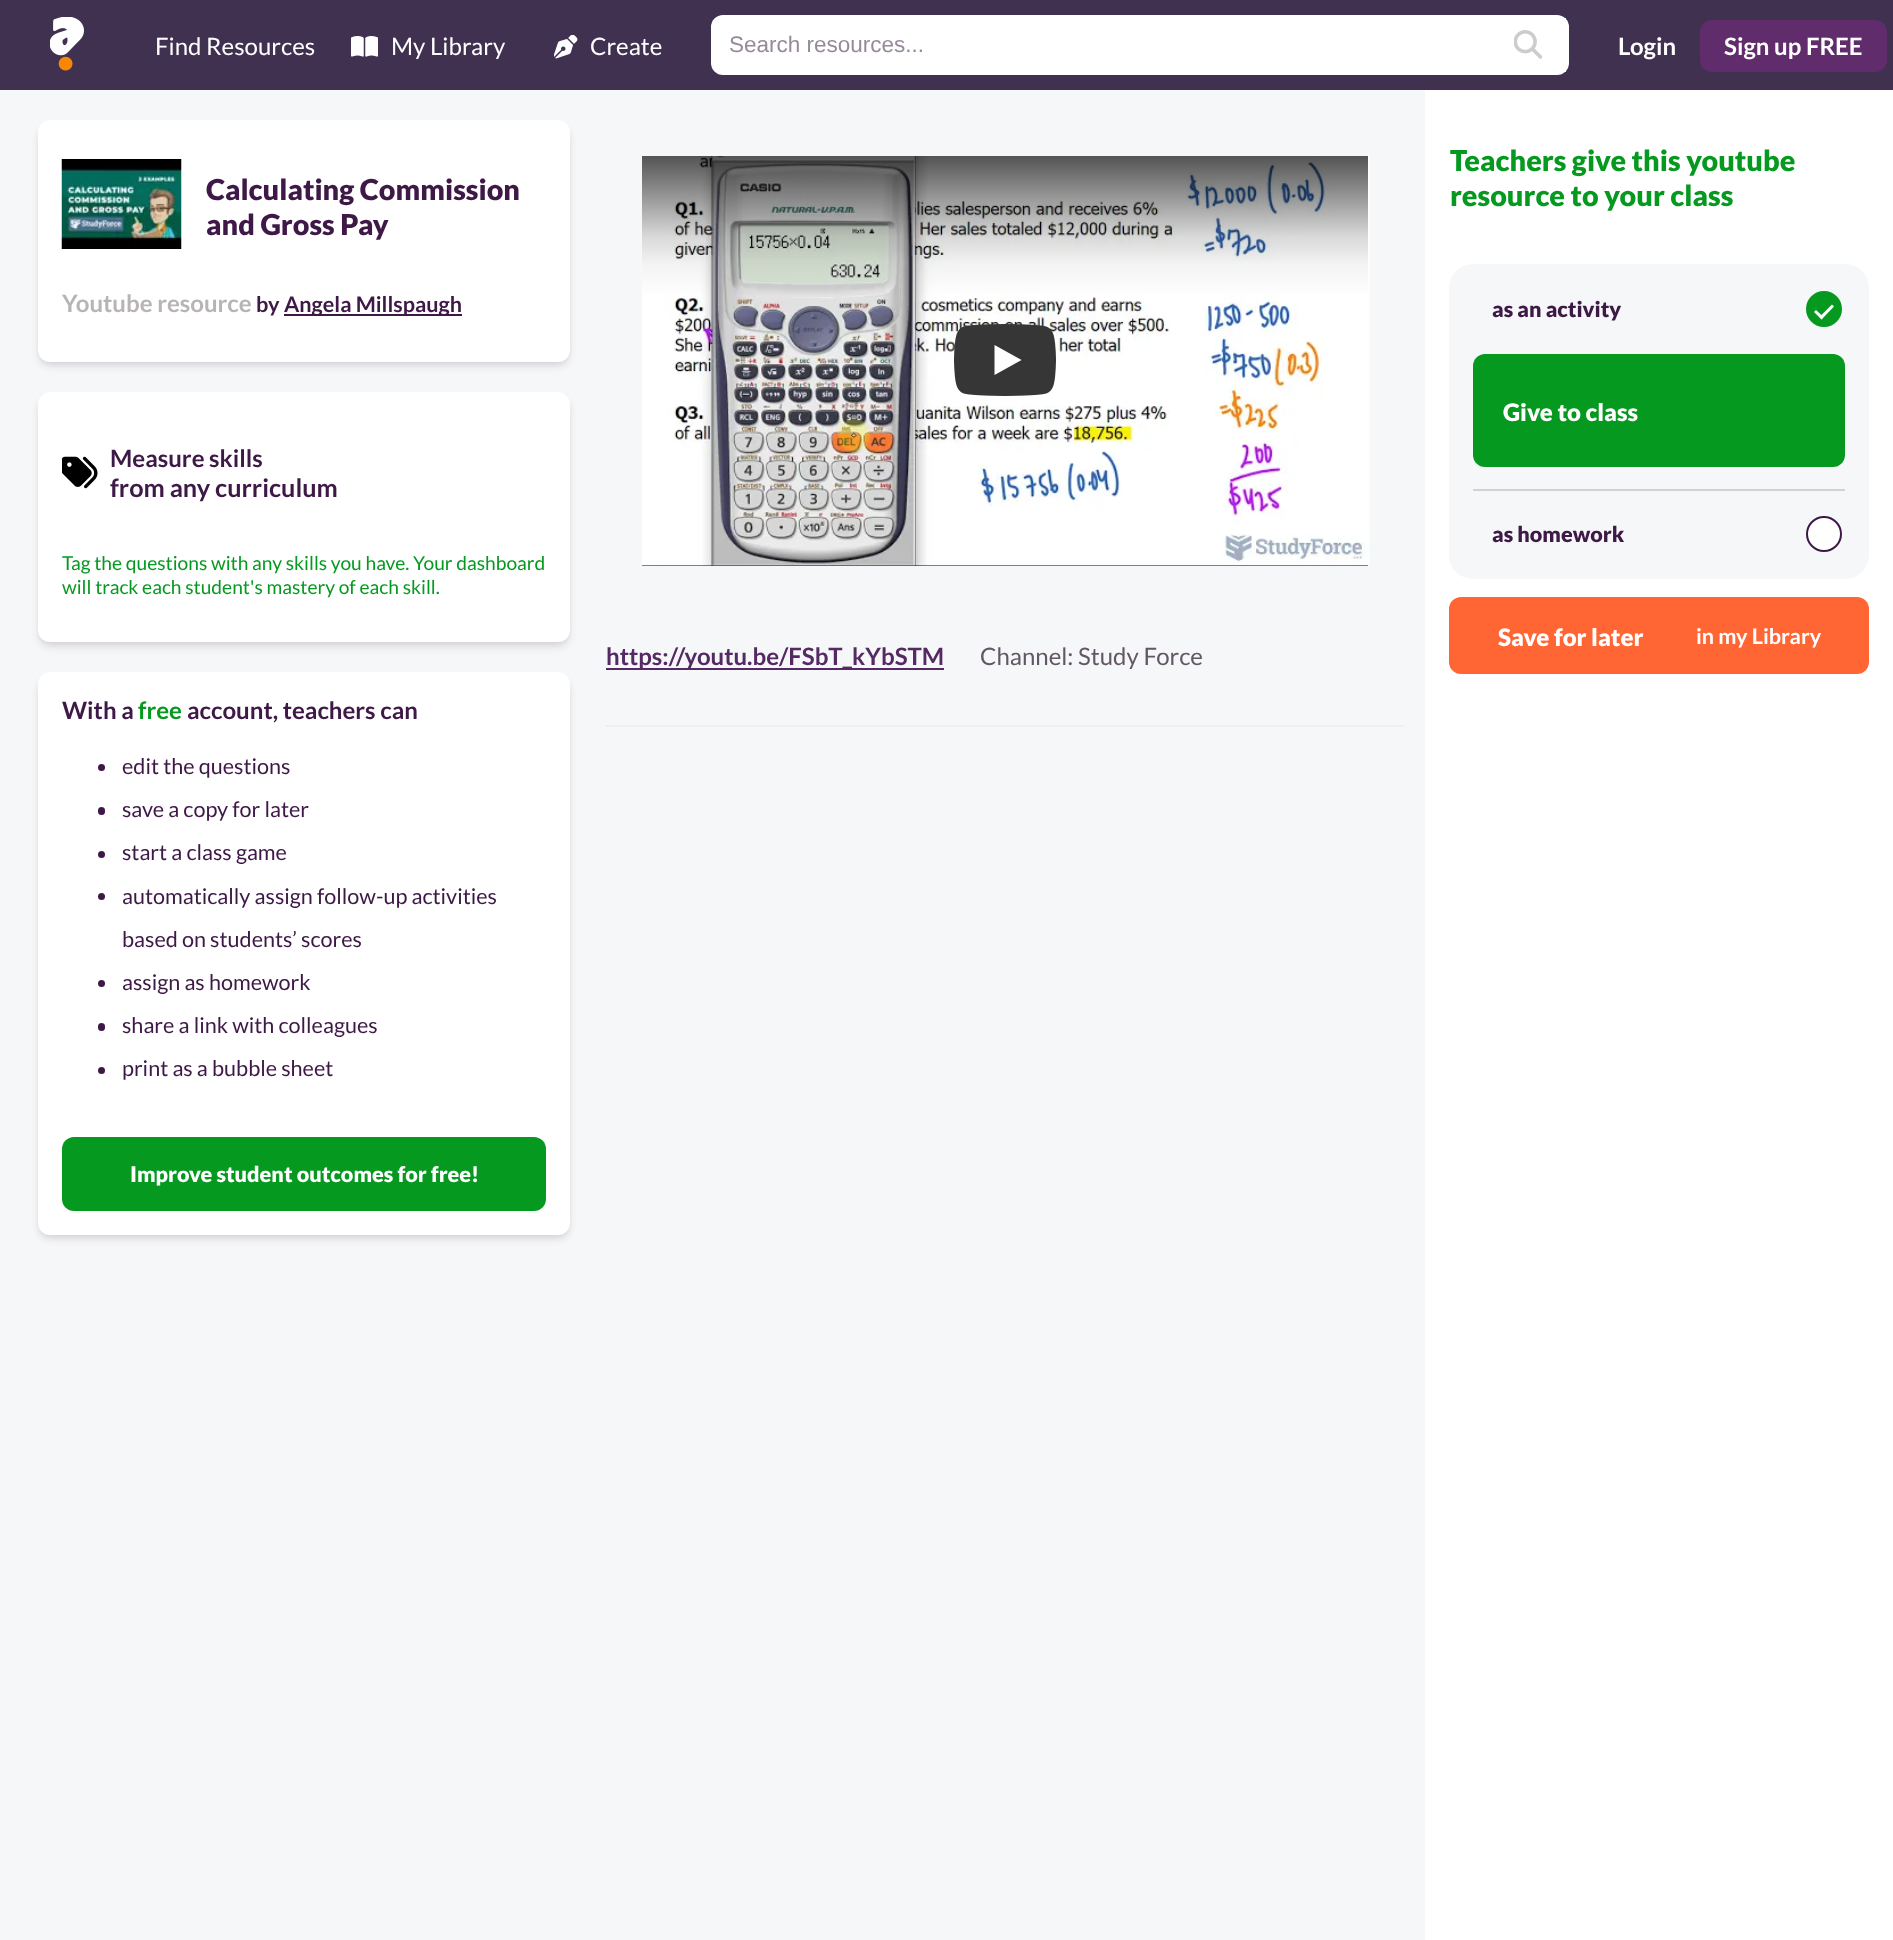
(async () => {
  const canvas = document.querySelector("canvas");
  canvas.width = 1893;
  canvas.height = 1940;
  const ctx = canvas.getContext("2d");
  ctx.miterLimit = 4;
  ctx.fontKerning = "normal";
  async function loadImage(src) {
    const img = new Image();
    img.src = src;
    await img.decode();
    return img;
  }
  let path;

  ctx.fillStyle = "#f6f7f8";
  ctx.fillRect(0, 0, 1893, 1940);
  ctx.fillStyle = "#403151";
  ctx.fillRect(0, 0, 1893, 90);
  ctx.drawImage(await loadImage("img/1.png"), 50, 17, 34, 54);
  ctx.drawImage(await loadImage("img/2.png"), 351, 36, 27, 21);
  ctx.drawImage(await loadImage("img/3.png"), 554, 35, 24, 24);
  ctx.fillStyle = "#ffffff";
  ctx.beginPath();
  ctx.roundRect(711, 15, 858, 60, 12);
  ctx.fill();
  ctx.beginPath();
  ctx.roundRect(711, 18, 855, 54, [12, 0, 0, 12]);
  ctx.fill();
  ctx.drawImage(await loadImage("img/4.png"), 1514, 30, 28, 29);
  ctx.fillStyle = "#612c6c";
  ctx.beginPath();
  ctx.roundRect(1700, 20, 187, 52, 12);
  ctx.fill();
  ctx.fillStyle = "rgba(24, 0, 43, 0.1)";
  ctx.filter = "blur(3px)";
  ctx.beginPath();
  ctx.roundRect(41, 126, 526, 236, 9);
  ctx.fill();
  ctx.filter = "none";
  ctx.filter = "blur(4.5px)";
  ctx.beginPath();
  ctx.roundRect(39, 128, 530, 238, 11);
  ctx.fill();
  ctx.filter = "none";
  ctx.fillStyle = "#ffffff";
  ctx.beginPath();
  ctx.roundRect(38, 120, 532, 242, 12);
  ctx.fill();
  ctx.drawImage(await loadImage("img/5.png"), 61, 159, 121, 90);
  ctx.fillStyle = "#3e1846";
  ctx.fillRect(284, 314, 178, 2);
  ctx.fillStyle = "#ffffff";
  ctx.fillRect(1425, 90, 468, 1850);
  ctx.fillStyle = "#f6f7f8";
  ctx.beginPath();
  ctx.roundRect(1449, 264, 420, 315, 24);
  ctx.fill();
  ctx.fillStyle = "#d1d2d3";
  ctx.fillRect(1473, 489, 372, 2);
  ctx.fillStyle = "#069920";
  ctx.beginPath();
  ctx.arc(1824, 309, 17, 0, Math.PI * 2);
  ctx.fill();
  ctx.strokeStyle = "#069920";
  ctx.lineWidth = 2;
  ctx.stroke();
  ctx.fillStyle = "#ffffff";
  path = new Path2D("M1832 304.5L1834 306.5L1821.5 319.5L1819.5 317Z");
  ctx.fill(path);
  path = new Path2D("M1816 310L1823.5 317L1821.5 319.5L1814 312Z");
  ctx.fill(path);
  ctx.fillStyle = "#069920";
  ctx.beginPath();
  ctx.roundRect(1473, 354, 372, 113, 12);
  ctx.fill();
  ctx.fillStyle = "#ffffff";
  ctx.beginPath();
  ctx.arc(1824, 534, 17, 0, Math.PI * 2);
  ctx.fill();
  ctx.strokeStyle = "#3e1846";
  ctx.stroke();
  ctx.fillStyle = "#ff6633";
  ctx.beginPath();
  ctx.roundRect(1449, 597, 420, 77, 12);
  ctx.fill();
  ctx.fillStyle = "rgba(24, 0, 43, 0.1)";
  ctx.filter = "blur(3px)";
  ctx.beginPath();
  ctx.roundRect(41, 398, 526, 244, 9);
  ctx.fill();
  ctx.filter = "none";
  ctx.filter = "blur(4.5px)";
  ctx.beginPath();
  ctx.roundRect(39, 399, 530, 248, 11);
  ctx.fill();
  ctx.filter = "none";
  ctx.fillStyle = "#ffffff";
  ctx.beginPath();
  ctx.roundRect(38, 392, 532, 250, 12);
  ctx.fill();
  ctx.drawImage(await loadImage("img/6.png"), 62, 456, 36, 33);
  ctx.fillStyle = "rgba(24, 0, 43, 0.1)";
  ctx.filter = "blur(3px)";
  ctx.beginPath();
  ctx.roundRect(41, 678, 526, 557, 9);
  ctx.fill();
  ctx.filter = "none";
  ctx.filter = "blur(4.5px)";
  ctx.beginPath();
  ctx.roundRect(39, 680, 530, 559, 11);
  ctx.fill();
  ctx.filter = "none";
  ctx.fillStyle = "#ffffff";
  ctx.beginPath();
  ctx.roundRect(38, 672, 532, 563, 12);
  ctx.fill();
  ctx.fillStyle = "#3e1846";
  ctx.beginPath();
  ctx.arc(101.5, 767.5, 3.5, 0, Math.PI * 2);
  ctx.fill();
  ctx.beginPath();
  ctx.roundRect(98, 807, 7, 8, 3.5);
  ctx.fill();
  ctx.beginPath();
  ctx.arc(101.5, 854.5, 3.5, 0, Math.PI * 2);
  ctx.fill();
  ctx.beginPath();
  ctx.arc(101.5, 896.5, 3.5, 0, Math.PI * 2);
  ctx.fill();
  ctx.beginPath();
  ctx.arc(101.5, 983.5, 3.5, 0, Math.PI * 2);
  ctx.fill();
  ctx.beginPath();
  ctx.roundRect(98, 1023, 7, 8, 3.5);
  ctx.fill();
  ctx.beginPath();
  ctx.arc(101.5, 1070.5, 3.5, 0, Math.PI * 2);
  ctx.fill();
  ctx.fillStyle = "#069920";
  ctx.beginPath();
  ctx.roundRect(62, 1137, 484, 74, 12);
  ctx.fill();
  ctx.fillStyle = "#000000";
  ctx.fillRect(642, 565, 726, 1);
  ctx.drawImage(await loadImage("img/7.png"), 642, 156, 728, 410);
  ctx.drawImage(await loadImage("img/8.png"), 954, 324, 102, 72);
  ctx.fillStyle = "#efefef";
  ctx.fillRect(606, 725, 798, 2);
  ctx.fillStyle = "#552963";
  ctx.fillRect(606, 668, 338, 2);
  ctx.font = "24px Lato";
  ctx.fillStyle = "#ffffff";
  for (const [text, x, y] of [
    ["Find Resources", 155, 55],
    ["My Library", 391, 55],
    ["Create", 590, 55],
  ]) {
    ctx.fillText(text, x, y);
  }
  ctx.font = "22.5px Liberation Sans";
  ctx.fillStyle = "#968a99";
  ctx.fillText("Search resources...", 729, 52);
  ctx.font = "bold 24px Lato";
  ctx.fillStyle = "#ffffff";
  ctx.fillText("Login", 1618, 55);
  ctx.fillText("Sign up FREE", 1724, 55);
  ctx.font = "900 28.75px Lato";
  ctx.fillStyle = "#3e1846";
  ctx.fillText("Calculating Commission", 206, 200);
  ctx.fillText("and Gross Pay", 206, 235);
  ctx.font = "bold 24px Lato";
  ctx.fillStyle = "#b8b4b4";
  ctx.fillText("Youtube resource", 62, 312);
  ctx.font = "bold 21.6px Lato";
  ctx.fillStyle = "#3e1846";
  ctx.fillText("by", 256, 312);
  ctx.fillText("Angela Millspaugh", 284, 312);
  ctx.font = "900 28.75px Lato";
  ctx.fillStyle = "#069920";
  ctx.fillText("Teachers give this youtube", 1450, 171);
  ctx.fillText("resource to your class", 1450, 206);
  ctx.font = "900 21.6px Lato";
  ctx.fillStyle = "#3e1846";
  ctx.fillText("as an activity", 1492, 317);
  ctx.font = "900 24px Lato";
  ctx.fillStyle = "#ffffff";
  ctx.fillText("Give to class", 1503, 421);
  ctx.font = "900 21.6px Lato";
  ctx.fillStyle = "#3e1846";
  ctx.fillText("as homework", 1492, 542);
  ctx.font = "900 24px Lato";
  ctx.fillStyle = "#ffffff";
  ctx.fillText("Save for later", 1498, 646);
  ctx.font = "bold 21.6px Lato";
  ctx.fillText("in my Library", 1696, 644);
  ctx.font = "bold 24px Lato";
  ctx.fillStyle = "#3e1846";
  ctx.fillText("Measure skills", 110, 467);
  ctx.font = "bold 25.25px Lato";
  ctx.fillText("from any curriculum", 110, 497);
  ctx.font = "19.2px Lato";
  ctx.fillStyle = "#069920";
  ctx.fillText("Tag the questions with any skills you have. Your dashboard", 62, 570);
  ctx.fillText("will track each student's mastery of each skill.", 62, 594);
  ctx.font = "bold 24px Lato";
  ctx.fillStyle = "#3e1846";
  ctx.fillText("With a", 62, 719);
  ctx.fillStyle = "#069920";
  ctx.fillText("free", 138, 719);
  ctx.fillStyle = "#3e1846";
  ctx.fillText("account, teachers can", 187, 719);
  ctx.font = "21.6px Lato";
  for (const [text, x, y] of [
    ["edit the questions", 122, 774],
    ["save a copy for later", 122, 817],
    ["start a class game", 122, 860],
    ["automatically assign follow-up activities", 122, 904],
    ["based on students’ scores", 122, 947],
    ["assign as homework", 122, 990],
    ["share a link with colleagues", 122, 1033],
    ["print as a bubble sheet", 122, 1076],
  ]) {
    ctx.fillText(text, x, y);
  }
  ctx.font = "900 21.6px Lato";
  ctx.fillStyle = "#ffffff";
  ctx.fillText("Improve student outcomes for free!", 130, 1182);
  ctx.font = "bold 24px Lato";
  ctx.fillStyle = "#552963";
  ctx.fillText("https://youtu.be/FSbT_kYbSTM", 606, 665);
  ctx.font = "24px Lato";
  ctx.fillStyle = "#635766";
  ctx.fillText("Channel: Study Force", 980, 665);
})();
